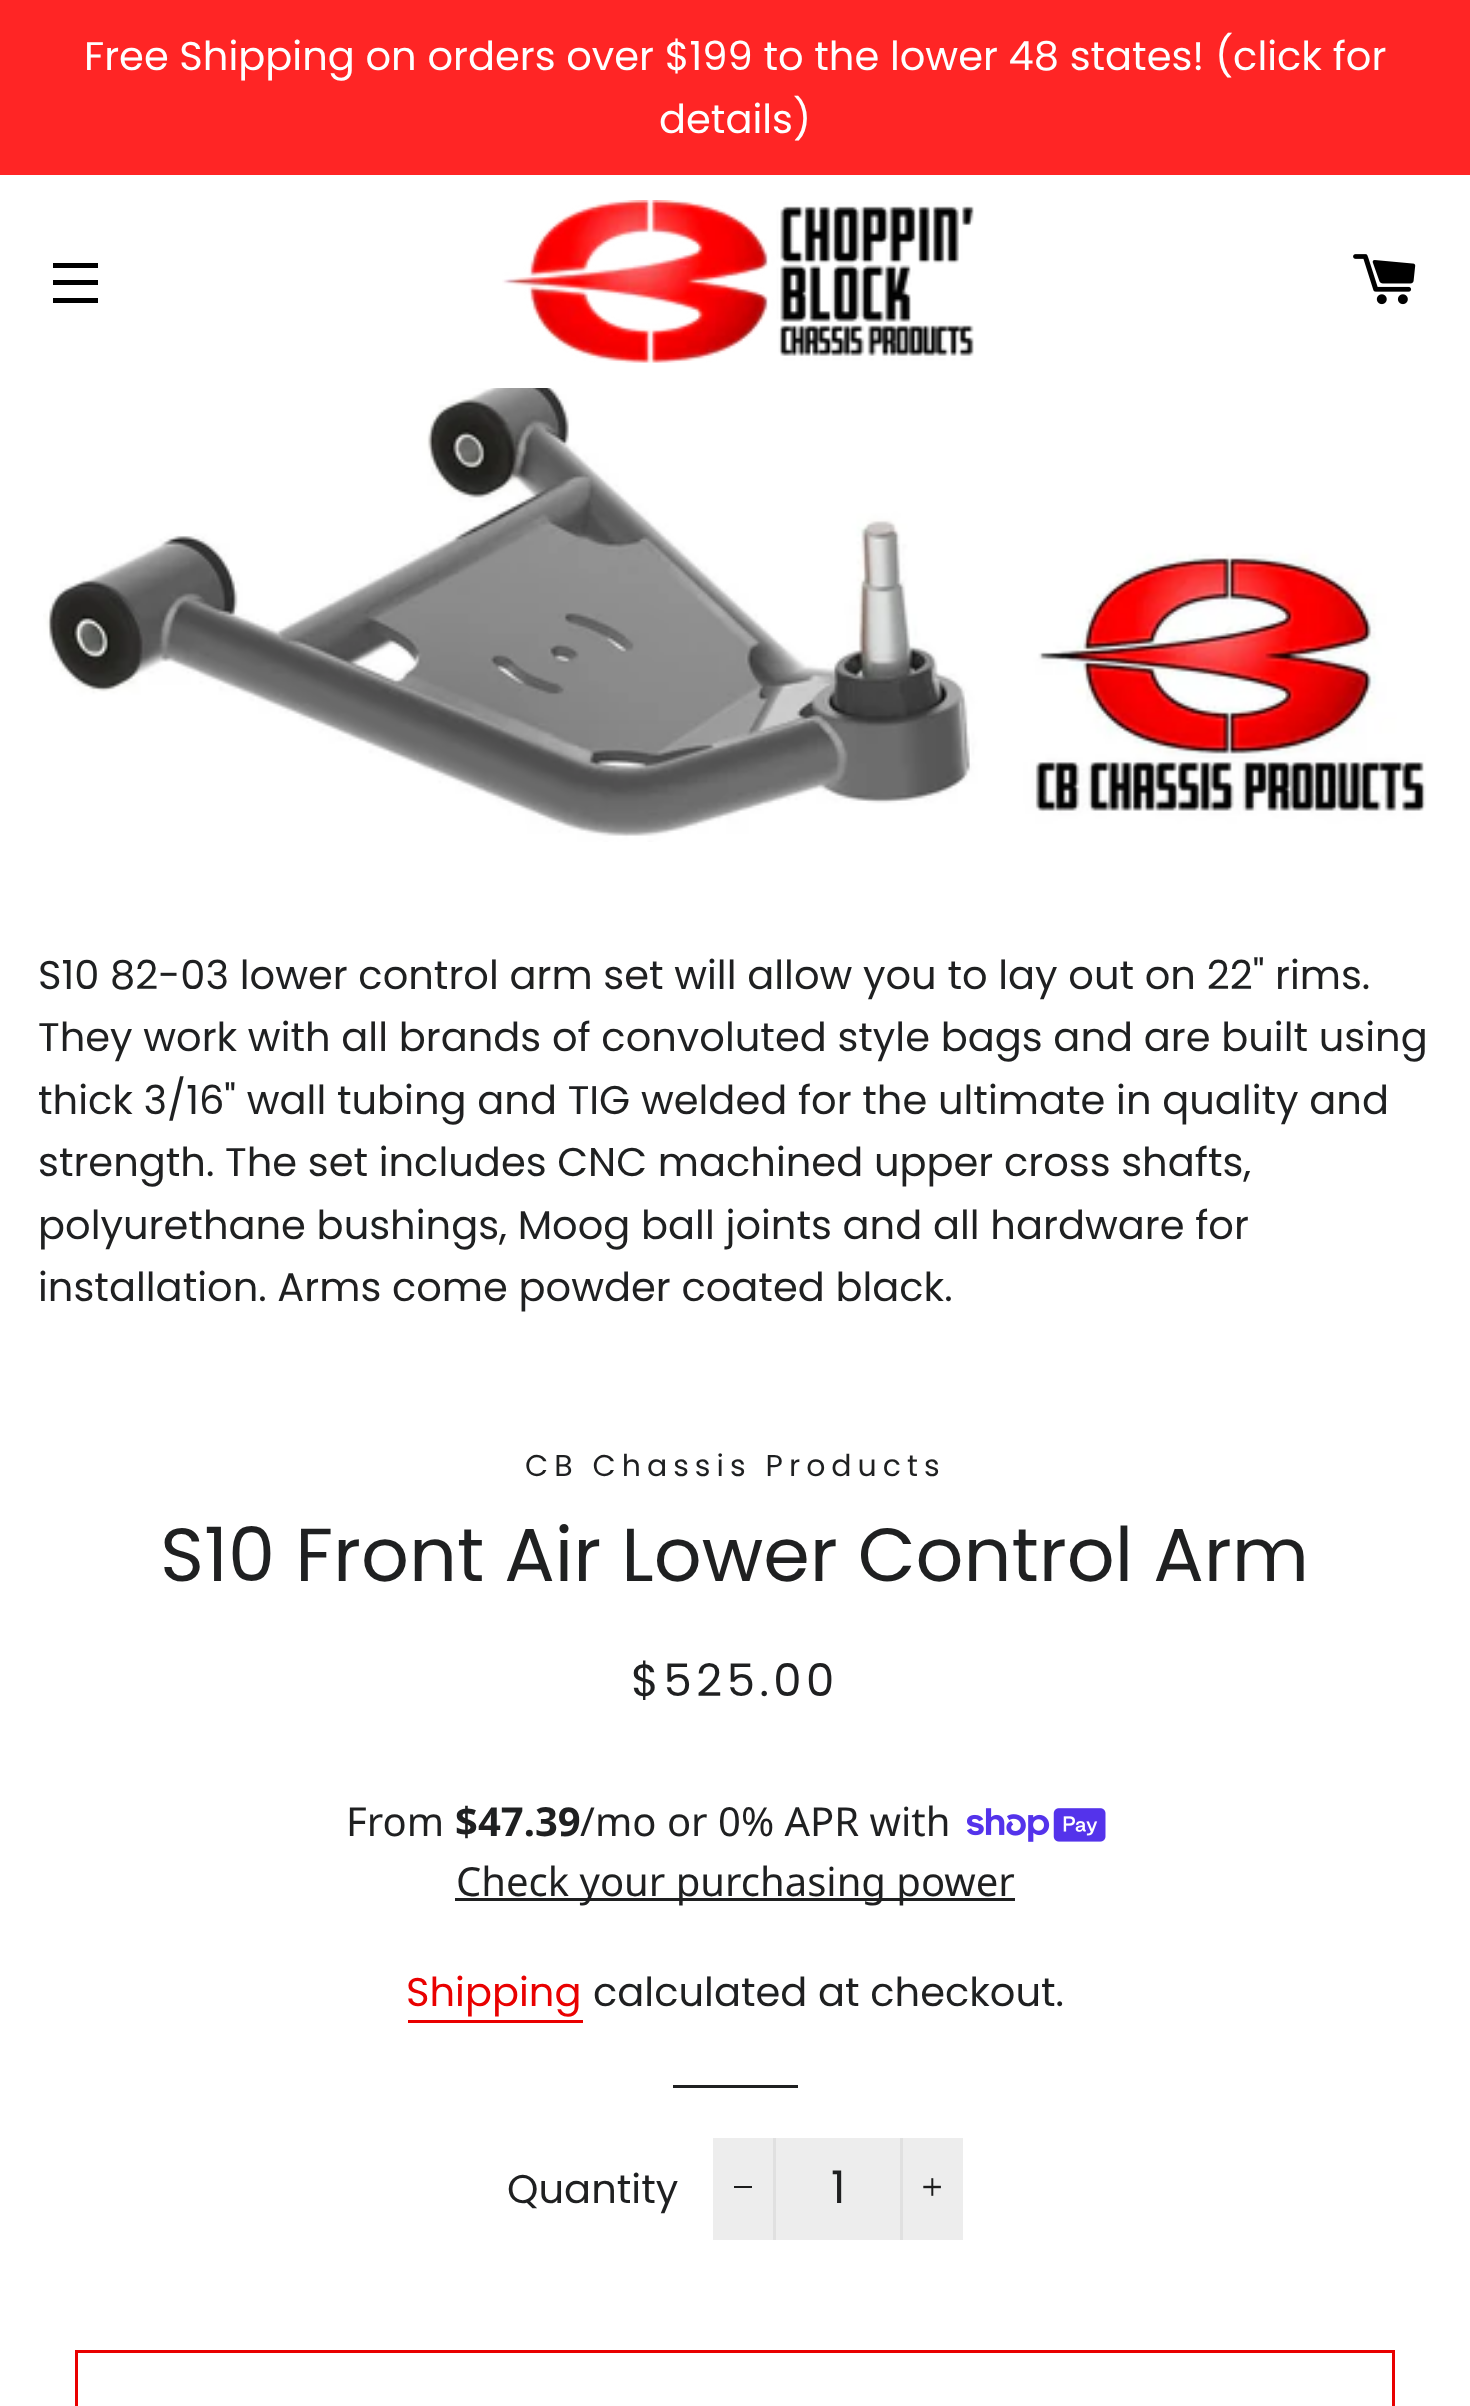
(async () => {
  const canvas = document.querySelector("canvas");
  canvas.width = 1470;
  canvas.height = 2406;
  const ctx = canvas.getContext("2d");
  ctx.miterLimit = 4;
  ctx.fontKerning = "normal";
  async function loadImage(src) {
    const img = new Image();
    img.src = src;
    await img.decode();
    return img;
  }

  ctx.fillStyle = "#ffffff";
  ctx.fillRect(0, 0, 1470, 2406);
  for (const [x, y, w, h, color] of [
    [0, 0, 1470, 175, "#ff2525"],
    [53, 263, 45, 5, "#000000"],
    [53, 280, 45, 5, "#000000"],
    [53, 298, 45, 5, "#000000"],
  ]) {
    ctx.fillStyle = color;
    ctx.fillRect(x, y, w, h);
  }
  ctx.drawImage(await loadImage("img/1.png"), 502, 200, 472, 163);
  ctx.drawImage(await loadImage("img/2.png"), 1353, 254, 63, 51);
  ctx.drawImage(await loadImage("img/3.png"), 43, 388, 1383, 454);
  ctx.drawImage(await loadImage("img/4.png"), 967, 1808, 139, 34);
  for (const [x, y, w, h, color] of [
    [455, 1898, 560, 3, "#1f2021"],
    [408, 2020, 175, 3, "#e90000"],
    [673, 2085, 125, 3, "#1f2021"],
    [713, 2138, 250, 102, "#ededed"],
    [773, 2138, 3, 102, "#e0e0e0"],
    [734, 2186, 18, 2, "#1c1d1d"],
    [900, 2138, 3, 102, "#e0e0e0"],
  ]) {
    ctx.fillStyle = color;
    ctx.fillRect(x, y, w, h);
  }
  ctx.drawImage(await loadImage("img/5.png"), 923, 2178, 18, 18);
  ctx.strokeStyle = "#e90000";
  ctx.lineWidth = 3;
  ctx.strokeRect(76.5, 2351.5, 1317, 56);
  ctx.font = "40px Poppins";
  ctx.fillStyle = "#ffffff";
  ctx.fillText("Free Shipping on orders over $199 to the lower 48 states! (click for", 84, 70);
  ctx.fillText("details)", 659, 133);
  ctx.fillStyle = "#1f2021";
  for (const [text, x, y] of [
    ["S10 82-03 lower control arm set will allow you to lay out on 22\" rims.", 38, 989],
    ["They work with all brands of convoluted style bags and are built using", 38, 1051],
    ["thick 3/16\" wall tubing and TIG welded for the ultimate in quality and", 38, 1114],
    ["strength. The set includes CNC machined upper cross shafts,", 38, 1176],
    ["polyurethane bushings, Moog ball joints and all hardware for", 38, 1239],
    ["installation. Arms come powder coated black.", 38, 1301],
  ]) {
    ctx.fillText(text, x, y);
  }
  ctx.letterSpacing = "6px";
  ctx.font = "30px Poppins";
  ctx.fillText("CB Chassis Products", 525, 1476);
  ctx.letterSpacing = "0px";
  ctx.font = "75px Poppins";
  ctx.fillText("S10 Front Air Lower Control Arm", 160, 1581);
  ctx.letterSpacing = "4.5px";
  ctx.font = "45px Poppins";
  ctx.fillText("$525.00", 631, 1696);
  ctx.letterSpacing = "0px";
  ctx.font = "40px Noto Sans";
  ctx.fillText("From", 346, 1836);
  ctx.font = "bold 40px Noto Sans";
  ctx.fillText("$47.39", 455, 1836);
  ctx.font = "40px Noto Sans";
  ctx.fillText("/mo or 0% APR with", 580, 1836);
  ctx.fillText("Check your purchasing power", 456, 1896);
  ctx.font = "40px Poppins";
  ctx.fillStyle = "#e90000";
  ctx.fillText("Shipping", 406, 2006);
  ctx.fillStyle = "#1f2021";
  ctx.fillText("calculated at checkout.", 593, 2006);
  ctx.fillText("Quantity", 507, 2203);
  ctx.font = "45px Poppins";
  ctx.fillText("1", 831, 2203);
})();
